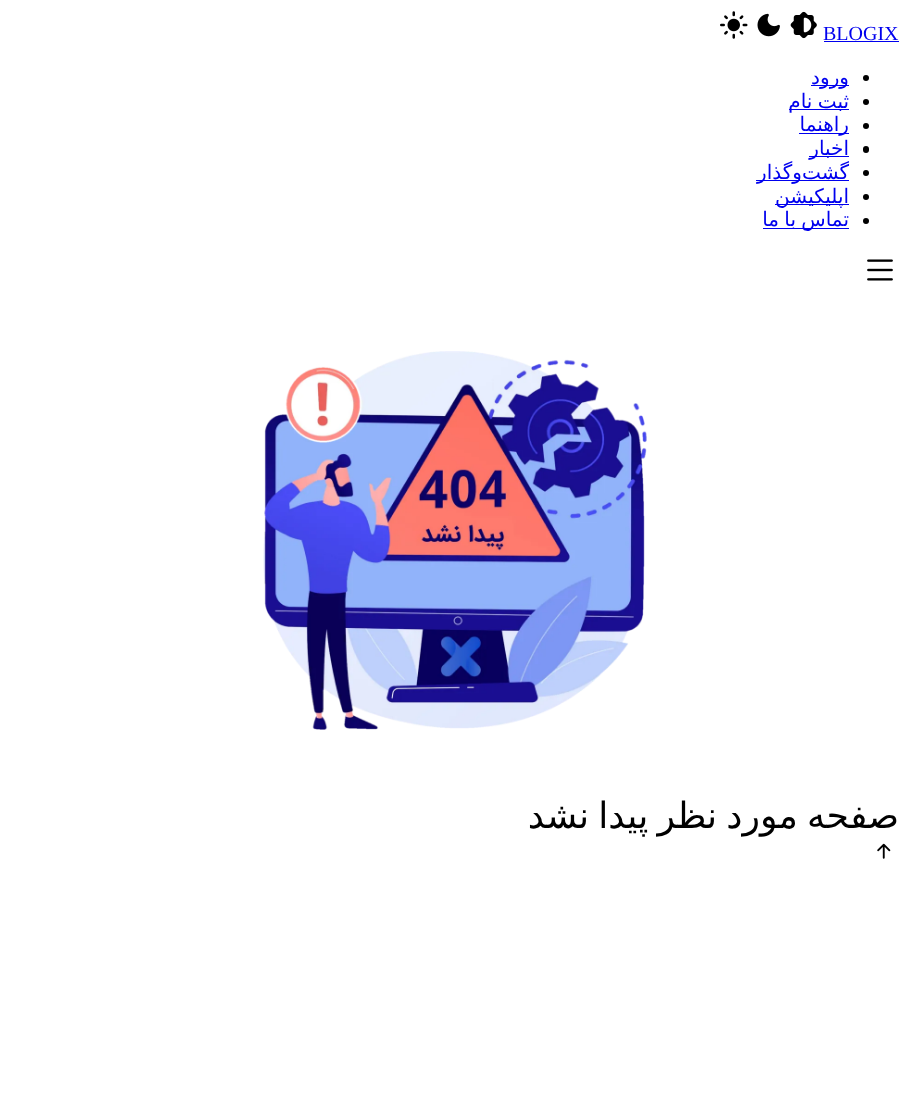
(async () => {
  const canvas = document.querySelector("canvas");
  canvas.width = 908;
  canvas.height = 1095;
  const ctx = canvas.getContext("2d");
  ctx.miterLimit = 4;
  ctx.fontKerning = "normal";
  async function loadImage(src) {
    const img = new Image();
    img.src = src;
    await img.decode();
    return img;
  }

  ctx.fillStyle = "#ffffff";
  ctx.fillRect(0, 0, 908, 1095);
  ctx.fillStyle = "#0000ee";
  ctx.fillRect(824, 41, 75, 1);
  ctx.drawImage(await loadImage("img/1.png"), 790, 11, 27, 28);
  ctx.drawImage(await loadImage("img/2.png"), 757, 13, 23, 24);
  ctx.drawImage(await loadImage("img/3.png"), 720, 11, 28, 28);
  ctx.fillStyle = "#000000";
  ctx.beginPath();
  ctx.arc(866, 78, 3, 0, Math.PI * 2);
  ctx.fill();
  ctx.fillStyle = "#0000ee";
  ctx.fillRect(811, 85, 38, 1);
  ctx.fillStyle = "#000000";
  ctx.beginPath();
  ctx.arc(866, 102, 3, 0, Math.PI * 2);
  ctx.fill();
  ctx.fillStyle = "#0000ee";
  ctx.fillRect(789, 109, 60, 1);
  ctx.fillStyle = "#000000";
  ctx.beginPath();
  ctx.arc(866, 126, 3, 0, Math.PI * 2);
  ctx.fill();
  ctx.fillStyle = "#0000ee";
  ctx.fillRect(799, 133, 50, 1);
  ctx.fillStyle = "#000000";
  ctx.beginPath();
  ctx.roundRect(863, 146, 6, 7, 3);
  ctx.fill();
  ctx.fillStyle = "#0000ee";
  ctx.fillRect(809, 156, 40, 1);
  ctx.fillStyle = "#000000";
  ctx.beginPath();
  ctx.arc(866, 173, 3, 0, Math.PI * 2);
  ctx.fill();
  ctx.fillStyle = "#0000ee";
  ctx.fillRect(756, 180, 93, 1);
  ctx.fillStyle = "#000000";
  ctx.beginPath();
  ctx.arc(866, 197, 3, 0, Math.PI * 2);
  ctx.fill();
  ctx.fillStyle = "#0000ee";
  ctx.fillRect(775, 204, 74, 1);
  ctx.fillStyle = "#000000";
  ctx.beginPath();
  ctx.arc(866, 221, 3, 0, Math.PI * 2);
  ctx.fill();
  ctx.fillStyle = "#0000ee";
  ctx.fillRect(763, 228, 86, 1);
  ctx.drawImage(await loadImage("img/4.png"), 867, 259, 26, 22);
  ctx.drawImage(await loadImage("img/5.png"), 263, 351, 384, 379);
  ctx.drawImage(await loadImage("img/6.png"), 877, 843, 14, 16);
  ctx.font = "20px Liberation Serif";
  ctx.fillText("BLOGIX", 823, 40);
  ctx.direction = "rtl";
  ctx.font = "20px DejaVu Sans";
  ctx.fillText("ورود", 849, 84);
  ctx.wordSpacing = "-1px";
  ctx.fillText("ثبت نام", 849, 108);
  ctx.wordSpacing = "0px";
  for (const [text, x, y] of [
    ["راهنما", 849, 131],
    ["اخبار", 849, 155],
    ["گشت", 849, 179],
    ["وگذار", 802, 179],
    ["اپلیکیشن", 849, 203],
  ]) {
    ctx.fillText(text, x, y);
  }
  ctx.wordSpacing = "-1px";
  ctx.fillText("تماس با ما", 849, 226);
  ctx.wordSpacing = "-2.5px";
  ctx.font = "36.25px DejaVu Sans";
  ctx.fillStyle = "#000000";
  ctx.fillText("صفحه مورد نظر پیدا نشد", 899, 828);
})();
